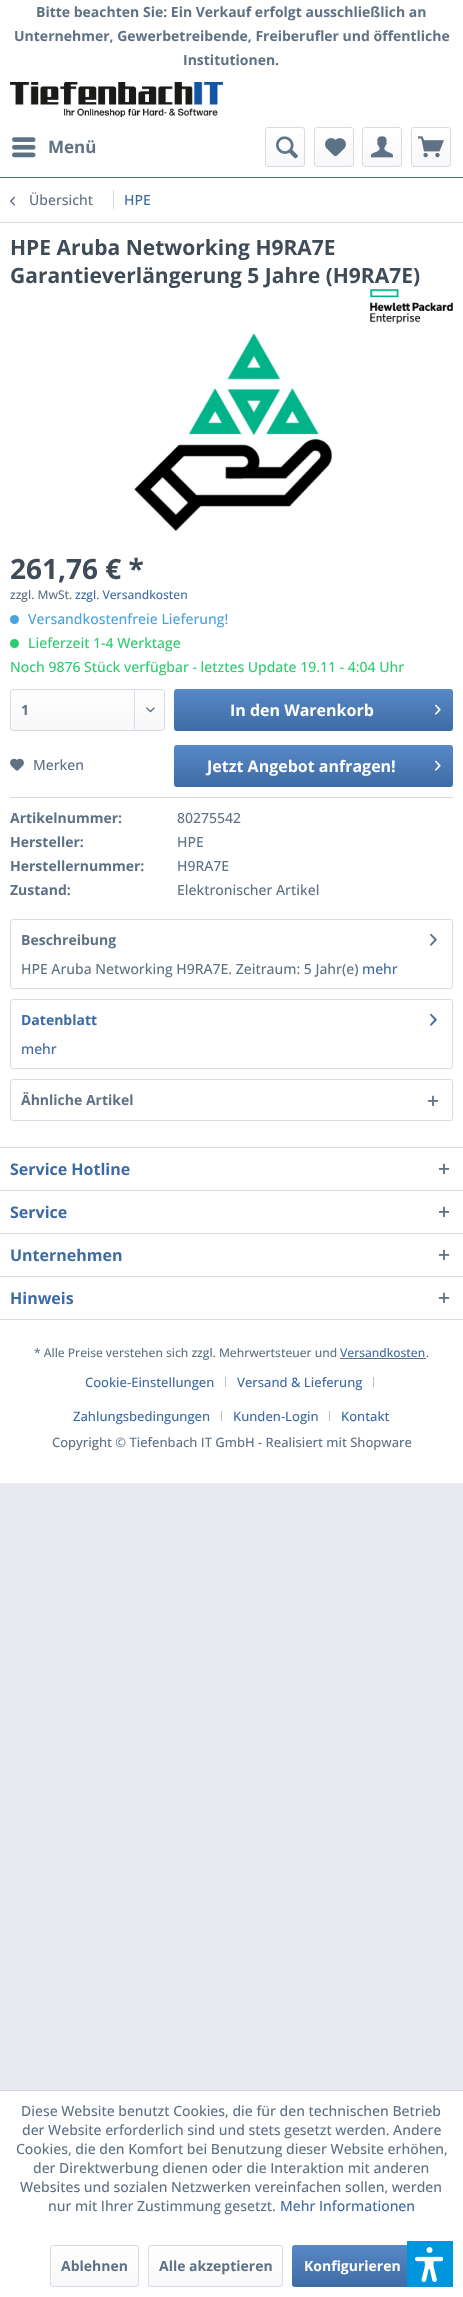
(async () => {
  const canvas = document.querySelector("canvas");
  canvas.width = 463;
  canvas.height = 2297;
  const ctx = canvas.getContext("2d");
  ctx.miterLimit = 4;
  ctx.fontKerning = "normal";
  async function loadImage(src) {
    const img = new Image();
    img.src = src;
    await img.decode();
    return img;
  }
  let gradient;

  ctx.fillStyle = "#e9e9f0";
  ctx.fillRect(0, 0, 463, 2297);
  ctx.fillStyle = "#ffffff";
  ctx.fillRect(0, 0, 463, 177);
  ctx.fillStyle = "#3e6ba4";
  ctx.fillRect(0, 177, 463, 1);
  ctx.drawImage(await loadImage("img/1.png"), 10, 82, 213, 35);
  ctx.drawImage(await loadImage("img/2.png"), 12, 137, 24, 21);
  gradient = ctx.createLinearGradient(285, 128, 285, 166);
  gradient.addColorStop(0, "#ffffff");
  gradient.addColorStop(1, "#f8f8fa");
  ctx.fillStyle = gradient;
  ctx.beginPath();
  ctx.roundRect(266, 128, 38, 38, 2);
  ctx.fill();
  ctx.beginPath();
  ctx.roundRect(265.5, 127.5, 39, 39, 2.5);
  ctx.strokeStyle = "#dadae5";
  ctx.stroke();
  ctx.drawImage(await loadImage("img/3.png"), 276, 136, 22, 23);
  gradient = ctx.createLinearGradient(334, 128, 334, 166);
  gradient.addColorStop(0, "#ffffff");
  gradient.addColorStop(1, "#f8f8fa");
  ctx.fillStyle = gradient;
  ctx.beginPath();
  ctx.roundRect(315, 128, 38, 38, 2);
  ctx.fill();
  ctx.beginPath();
  ctx.roundRect(314.5, 127.5, 39, 39, 2.5);
  ctx.stroke();
  ctx.drawImage(await loadImage("img/4.png"), 325, 138, 21, 19);
  gradient = ctx.createLinearGradient(382, 128, 382, 166);
  gradient.addColorStop(0, "#ffffff");
  gradient.addColorStop(1, "#f8f8fa");
  ctx.fillStyle = gradient;
  ctx.beginPath();
  ctx.roundRect(363, 128, 38, 38, 2);
  ctx.fill();
  ctx.beginPath();
  ctx.roundRect(362.5, 127.5, 39, 39, 2.5);
  ctx.stroke();
  ctx.drawImage(await loadImage("img/5.png"), 371, 136, 22, 22);
  gradient = ctx.createLinearGradient(431, 128, 431, 166);
  gradient.addColorStop(0, "#ffffff");
  gradient.addColorStop(1, "#f8f8fa");
  ctx.fillStyle = gradient;
  ctx.beginPath();
  ctx.roundRect(412, 128, 38, 38, 2);
  ctx.fill();
  ctx.beginPath();
  ctx.roundRect(411.5, 127.5, 39, 39, 2.5);
  ctx.stroke();
  ctx.drawImage(await loadImage("img/6.png"), 418, 136, 26, 22);
  ctx.fillStyle = "#ffffff";
  ctx.fillRect(0, 178, 463, 969);
  ctx.fillStyle = "#dadae5";
  ctx.fillRect(0, 222, 463, 1);
  ctx.drawImage(await loadImage("img/7.png"), 10, 196, 5, 10);
  ctx.fillRect(113, 190, 1, 19);
  ctx.drawImage(await loadImage("img/8.png"), 370, 289, 83, 35);
  ctx.drawImage(await loadImage("img/9.png"), 134, 334, 198, 198);
  ctx.fillStyle = "#4aa3df";
  ctx.beginPath();
  ctx.arc(14.5, 619.5, 4.5, 0, Math.PI * 2);
  ctx.fill();
  ctx.fillStyle = "#2ecc71";
  ctx.beginPath();
  ctx.arc(14.5, 643.5, 4.5, 0, Math.PI * 2);
  ctx.fill();
  gradient = ctx.createLinearGradient(88, 690, 88, 730);
  gradient.addColorStop(0, "#ffffff");
  gradient.addColorStop(1, "#f8f8fa");
  ctx.fillStyle = gradient;
  ctx.beginPath();
  ctx.roundRect(11, 690, 153, 40, 2);
  ctx.fill();
  ctx.beginPath();
  ctx.roundRect(10.5, 689.5, 154, 41, 2.5);
  ctx.stroke();
  ctx.fillStyle = "#dadae5";
  ctx.fillRect(134, 690, 1, 40);
  ctx.drawImage(await loadImage("img/10.png"), 146, 707, 9, 6);
  gradient = ctx.createLinearGradient(314, 689, 314, 731);
  gradient.addColorStop(0, "#5889c7");
  gradient.addColorStop(1, "#3e6ba4");
  ctx.fillStyle = gradient;
  ctx.beginPath();
  ctx.roundRect(174, 689, 279, 42, 3);
  ctx.fill();
  ctx.drawImage(await loadImage("img/11.png"), 435, 704, 6, 11);
  ctx.fillStyle = "#dadae5";
  ctx.fillRect(10, 797, 443, 1);
  ctx.drawImage(await loadImage("img/12.png"), 10, 758, 14, 13);
  gradient = ctx.createLinearGradient(314, 745, 314, 787);
  gradient.addColorStop(0, "#5889c7");
  gradient.addColorStop(1, "#3e6ba4");
  ctx.fillStyle = gradient;
  ctx.beginPath();
  ctx.roundRect(174, 745, 279, 42, 3);
  ctx.fill();
  ctx.drawImage(await loadImage("img/11.png"), 435, 760, 6, 11);
  ctx.beginPath();
  ctx.roundRect(10.5, 919.5, 442, 69, 2.5);
  ctx.stroke();
  ctx.drawImage(await loadImage("img/13.png"), 430, 933, 7, 13);
  ctx.beginPath();
  ctx.roundRect(10.5, 999.5, 442, 69, 2.5);
  ctx.stroke();
  ctx.drawImage(await loadImage("img/14.png"), 430, 1013, 7, 13);
  ctx.beginPath();
  ctx.roundRect(10.5, 1079.5, 442, 41, 2.5);
  ctx.stroke();
  ctx.drawImage(await loadImage("img/15.png"), 427, 1095, 12, 12);
  ctx.fillStyle = "#ffffff";
  ctx.fillRect(0, 1148, 463, 335);
  ctx.fillStyle = "#dadae5";
  ctx.fillRect(0, 1147, 463, 1);
  ctx.drawImage(await loadImage("img/15.png"), 438, 1163, 12, 12);
  ctx.fillRect(0, 1190, 463, 1);
  ctx.drawImage(await loadImage("img/15.png"), 438, 1206, 12, 12);
  ctx.fillRect(0, 1233, 463, 1);
  ctx.drawImage(await loadImage("img/15.png"), 438, 1249, 12, 12);
  ctx.fillRect(0, 1276, 463, 1);
  ctx.fillRect(0, 1319, 463, 1);
  ctx.drawImage(await loadImage("img/15.png"), 438, 1292, 12, 12);
  for (const [x, y, w, h, color] of [
    [340, 1358, 86, 1, "#5f7285"],
    [225, 1377, 1, 10, "#bcbcd0"],
    [373, 1377, 1, 10, "#bcbcd0"],
    [221, 1411, 1, 10, "#bcbcd0"],
    [329, 1411, 1, 10, "#bcbcd0"],
    [0, 2091, 463, 206, "#ffffff"],
    [0, 2090, 463, 1, "#dadae5"],
  ]) {
    ctx.fillStyle = color;
    ctx.fillRect(x, y, w, h);
  }
  gradient = ctx.createLinearGradient(95, 2246, 95, 2286);
  gradient.addColorStop(0, "#ffffff");
  gradient.addColorStop(1, "#f8f8fa");
  ctx.fillStyle = gradient;
  ctx.beginPath();
  ctx.roundRect(51, 2246, 87, 40, 2);
  ctx.fill();
  ctx.beginPath();
  ctx.roundRect(50.5, 2245.5, 88, 41, 2.5);
  ctx.stroke();
  gradient = ctx.createLinearGradient(216, 2246, 216, 2286);
  gradient.addColorStop(0, "#ffffff");
  gradient.addColorStop(1, "#f8f8fa");
  ctx.fillStyle = gradient;
  ctx.beginPath();
  ctx.roundRect(149, 2246, 133, 40, 2);
  ctx.fill();
  ctx.beginPath();
  ctx.roundRect(148.5, 2245.5, 134, 41, 2.5);
  ctx.stroke();
  gradient = ctx.createLinearGradient(353, 2245, 353, 2287);
  gradient.addColorStop(0, "#5889c7");
  gradient.addColorStop(1, "#3e6ba4");
  ctx.fillStyle = gradient;
  ctx.beginPath();
  ctx.roundRect(292, 2245, 121, 42, 3);
  ctx.fill();
  ctx.fillStyle = "#0096de";
  ctx.fillRect(407, 2241, 46, 46);
  ctx.drawImage(await loadImage("img/16.png"), 415, 2247, 28, 35);
  ctx.font = "bold 14px Open Sans";
  ctx.fillStyle = "#5f7285";
  for (const [text, x, y] of [
    ["Bitte beachten Sie: Ein Verkauf erfolgt ausschließlich an", 36, 17],
    ["Unternehmer, Gewerbetreibende, Freiberufler und öffentliche", 14, 41],
    ["Institutionen.", 183, 65],
  ]) {
    ctx.fillText(text, x, y);
  }
  ctx.font = "bold 17px Open Sans";
  ctx.fillText("Menü", 48, 153);
  ctx.font = "500 14px Open Sans";
  ctx.fillText("Übersicht", 29, 205);
  ctx.fillStyle = "#3e6ba4";
  ctx.fillText("HPE", 124, 205);
  ctx.font = "bold 21px Open Sans";
  ctx.fillStyle = "#3f4c58";
  ctx.fillText("HPE Aruba Networking H9RA7E", 10, 255);
  ctx.fillText("Garantieverlängerung 5 Jahre (H9RA7E)", 10, 283);
  ctx.font = "bold 28px Open Sans";
  ctx.fillText("261,76 € *", 10, 579);
  ctx.font = "500 12px Open Sans";
  ctx.fillStyle = "#5f7285";
  ctx.fillText("zzgl. MwSt.", 10, 599);
  ctx.fillStyle = "#3e6ba4";
  ctx.fillText("zzgl. Versandkosten", 75, 599);
  ctx.font = "500 14px Open Sans";
  ctx.fillStyle = "#4aa3df";
  ctx.fillText("Versandkostenfreie Lieferung!", 28, 624);
  ctx.fillStyle = "#2ecc71";
  ctx.fillText("Lieferzeit 1-4 Werktage", 28, 648);
  ctx.fillText("Noch 9876 Stück verfügbar - letztes Update 19.11 - 4:04 Uhr", 10, 672);
  ctx.font = "bold 14px Open Sans";
  ctx.fillStyle = "#5f7285";
  ctx.fillText("1", 21, 715);
  ctx.font = "bold 16px Open Sans";
  ctx.fillStyle = "#ffffff";
  ctx.fillText("In den Warenkorb", 230, 716);
  ctx.font = "500 14px Open Sans";
  ctx.fillStyle = "#5f7285";
  ctx.fillText("Merken", 33, 770);
  ctx.font = "bold 16px Open Sans";
  ctx.fillStyle = "#ffffff";
  ctx.fillText("Jetzt Angebot anfragen!", 207, 772);
  ctx.font = "bold 14px Open Sans";
  ctx.fillStyle = "#5f7285";
  ctx.fillText("Artikelnummer:", 10, 823);
  ctx.font = "500 14px Open Sans";
  ctx.fillText("80275542", 177, 823);
  ctx.font = "bold 14px Open Sans";
  ctx.fillText("Hersteller:", 10, 847);
  ctx.font = "500 14px Open Sans";
  ctx.fillText("HPE", 177, 847);
  ctx.font = "bold 14px Open Sans";
  ctx.fillText("Herstellernummer:", 10, 871);
  ctx.font = "500 14px Open Sans";
  ctx.fillText("H9RA7E", 177, 871);
  ctx.font = "bold 14px Open Sans";
  ctx.fillText("Zustand:", 10, 895);
  ctx.font = "500 14px Open Sans";
  ctx.fillText("Elektronischer Artikel", 177, 895);
  ctx.font = "bold 14px Open Sans";
  ctx.fillText("Beschreibung", 21, 945);
  ctx.font = "500 14px Open Sans";
  ctx.fillText("HPE Aruba Networking H9RA7E. Zeitraum: 5 Jahr(e)", 21, 974);
  ctx.fillStyle = "#3e6ba4";
  ctx.fillText("mehr", 362, 974);
  ctx.font = "bold 14px Open Sans";
  ctx.fillText("Datenblatt", 21, 1025);
  ctx.font = "500 14px Open Sans";
  ctx.fillText("mehr", 21, 1054);
  ctx.font = "bold 14px Open Sans";
  ctx.fillStyle = "#5f7285";
  ctx.fillText("Ähnliche Artikel", 21, 1105);
  ctx.font = "bold 16px Open Sans";
  ctx.fillStyle = "#3e6ba4";
  for (const [text, x, y] of [
    ["Service Hotline", 10, 1175],
    ["Service", 10, 1218],
    ["Unternehmen", 10, 1261],
    ["Hinweis", 10, 1304],
  ]) {
    ctx.fillText(text, x, y);
  }
  ctx.font = "500 12px Open Sans";
  ctx.fillStyle = "#5f7285";
  ctx.fillText("* Alle Preise verstehen sich zzgl. Mehrwertsteuer und", 34, 1357);
  ctx.fillStyle = "#3e6ba4";
  ctx.fillText("Versandkosten", 340, 1357);
  ctx.fillStyle = "#5f7285";
  ctx.fillText(".", 426, 1357);
  ctx.font = "500 13px Open Sans";
  ctx.fillStyle = "#3e6ba4";
  for (const [text, x, y] of [
    ["Cookie-Einstellungen", 85, 1387],
    ["Versand & Lieferung", 237, 1387],
    ["Zahlungsbedingungen", 73, 1421],
    ["Kunden-Login", 233, 1421],
    ["Kontakt", 341, 1421],
  ]) {
    ctx.fillText(text, x, y);
  }
  ctx.fillStyle = "#5f7285";
  ctx.fillText("Copyright © Tiefenbach IT GmbH - Realisiert mit Shopware", 52, 1447);
  ctx.font = "500 14px Open Sans";
  for (const [text, x, y] of [
    ["Diese Website benutzt Cookies, die für den technischen Betrieb", 21, 2116],
    ["der Website erforderlich sind und stets gesetzt werden. Andere", 22, 2135],
    ["Cookies, die den Komfort bei Benutzung dieser Website erhöhen,", 16, 2154],
    ["der Direktwerbung dienen oder die Interaktion mit anderen", 33, 2173],
    ["Websites und sozialen Netzwerken vereinfachen sollen, werden", 20, 2192],
    ["nur mit Ihrer Zustimmung gesetzt.", 48, 2211],
  ]) {
    ctx.fillText(text, x, y);
  }
  ctx.fillStyle = "#3e6ba4";
  ctx.fillText("Mehr Informationen", 280, 2211);
  ctx.font = "bold 14px Open Sans";
  ctx.fillStyle = "#5f7285";
  ctx.fillText("Ablehnen", 61, 2271);
  ctx.fillText("Alle akzeptieren", 159, 2271);
  ctx.fillStyle = "#ffffff";
  ctx.fillText("Konfigurieren", 304, 2271);
})();
